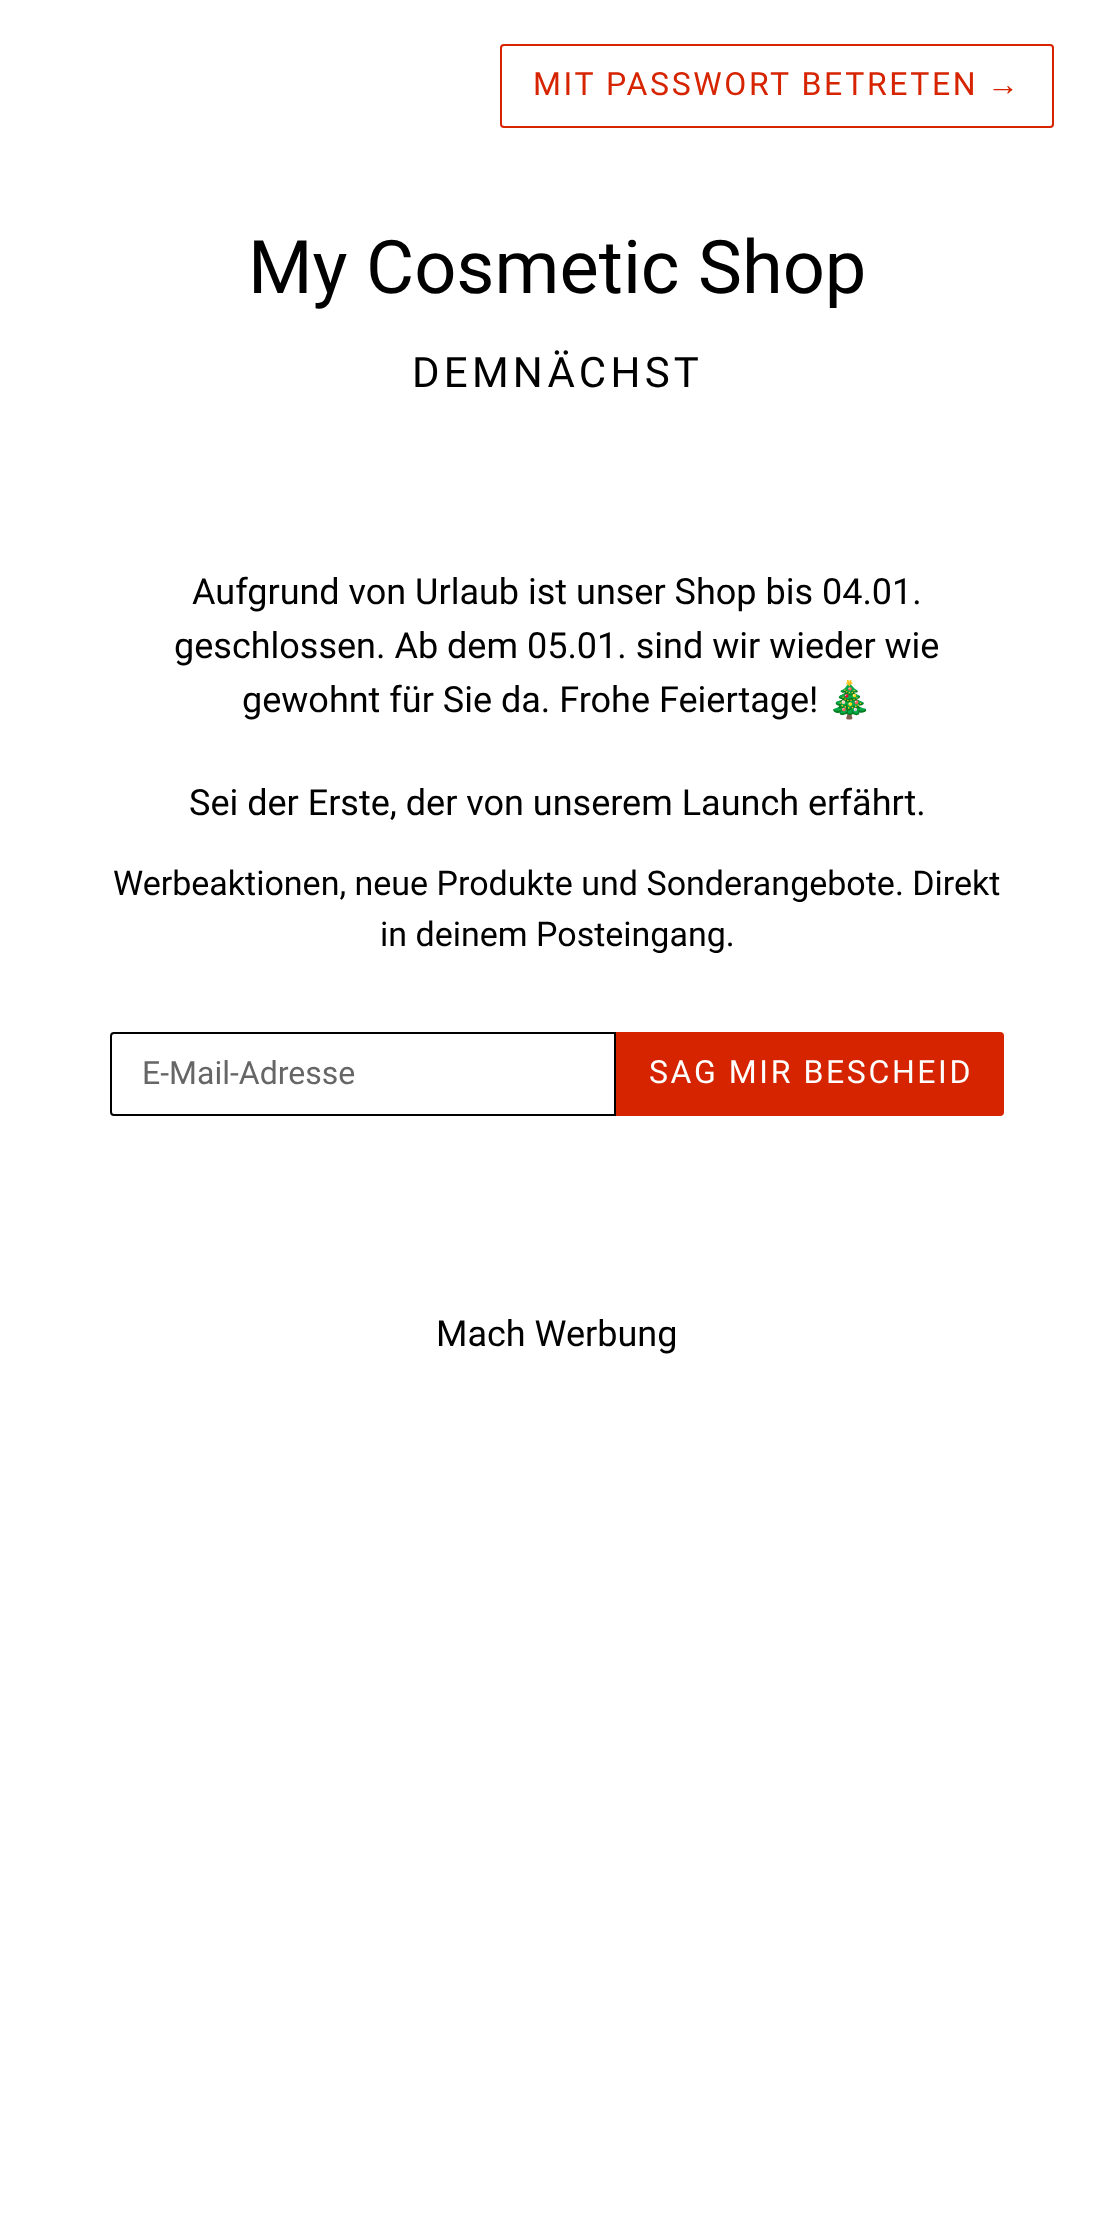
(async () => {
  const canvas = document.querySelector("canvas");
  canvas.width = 1113;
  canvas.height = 2227;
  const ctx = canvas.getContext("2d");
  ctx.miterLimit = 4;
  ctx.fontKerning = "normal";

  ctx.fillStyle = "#ffffff";
  ctx.fillRect(0, 0, 1113, 2227);
  ctx.beginPath();
  ctx.roundRect(501, 45, 552, 82, 3);
  ctx.strokeStyle = "#d62400";
  ctx.lineWidth = 2;
  ctx.stroke();
  ctx.beginPath();
  ctx.roundRect(111, 1033, 504, 82, [3, 0, 0, 3]);
  ctx.strokeStyle = "#000000";
  ctx.stroke();
  ctx.fillStyle = "#d62400";
  ctx.beginPath();
  ctx.roundRect(616, 1032, 388, 84, [0, 4, 4, 0]);
  ctx.fill();
  ctx.letterSpacing = "2.6px";
  ctx.font = "32px Roboto";
  ctx.fillText("MIT PASSWORT BETRETEN", 533, 95);
  ctx.font = "32px Liberation Sans";
  ctx.fillText("→", 987, 95);
  ctx.letterSpacing = "0px";
  ctx.font = "74px Roboto";
  ctx.fillStyle = "#000000";
  ctx.fillText("My Cosmetic Shop", 248, 293);
  ctx.letterSpacing = "4.25px";
  ctx.font = "42px Roboto";
  ctx.fillText("DEMNÄCHST", 412, 387);
  ctx.letterSpacing = "0px";
  ctx.font = "36px Roboto";
  for (const [text, x, y] of [
    ["Aufgrund von Urlaub ist unser Shop bis 04.01.", 192, 604],
    ["geschlossen. Ab dem 05.01. sind wir wieder wie", 174, 658],
    ["gewohnt für Sie da. Frohe Feiertage!", 242, 712],
  ]) {
    ctx.fillText(text, x, y);
  }
  ctx.font = "36px Noto Color Emoji";
  ctx.fillText("🎄", 827, 712);
  ctx.font = "36px Roboto";
  ctx.fillText("Sei der Erste, der von unserem Launch erfährt.", 189, 815);
  ctx.font = "34px Roboto";
  ctx.fillText("Werbeaktionen, neue Produkte und Sonderangebote. Direkt", 113, 895);
  ctx.fillText("in deinem Posteingang.", 380, 946);
  ctx.font = "32px Roboto";
  ctx.fillStyle = "#666666";
  ctx.fillText("E-Mail-Adresse", 142, 1084);
  ctx.letterSpacing = "2.6px";
  ctx.fillStyle = "#ffffff";
  ctx.fillText("SAG MIR BESCHEID", 649, 1083);
  ctx.letterSpacing = "0px";
  ctx.font = "36px Roboto";
  ctx.fillStyle = "#000000";
  ctx.fillText("Mach Werbung", 436, 1346);
})();
